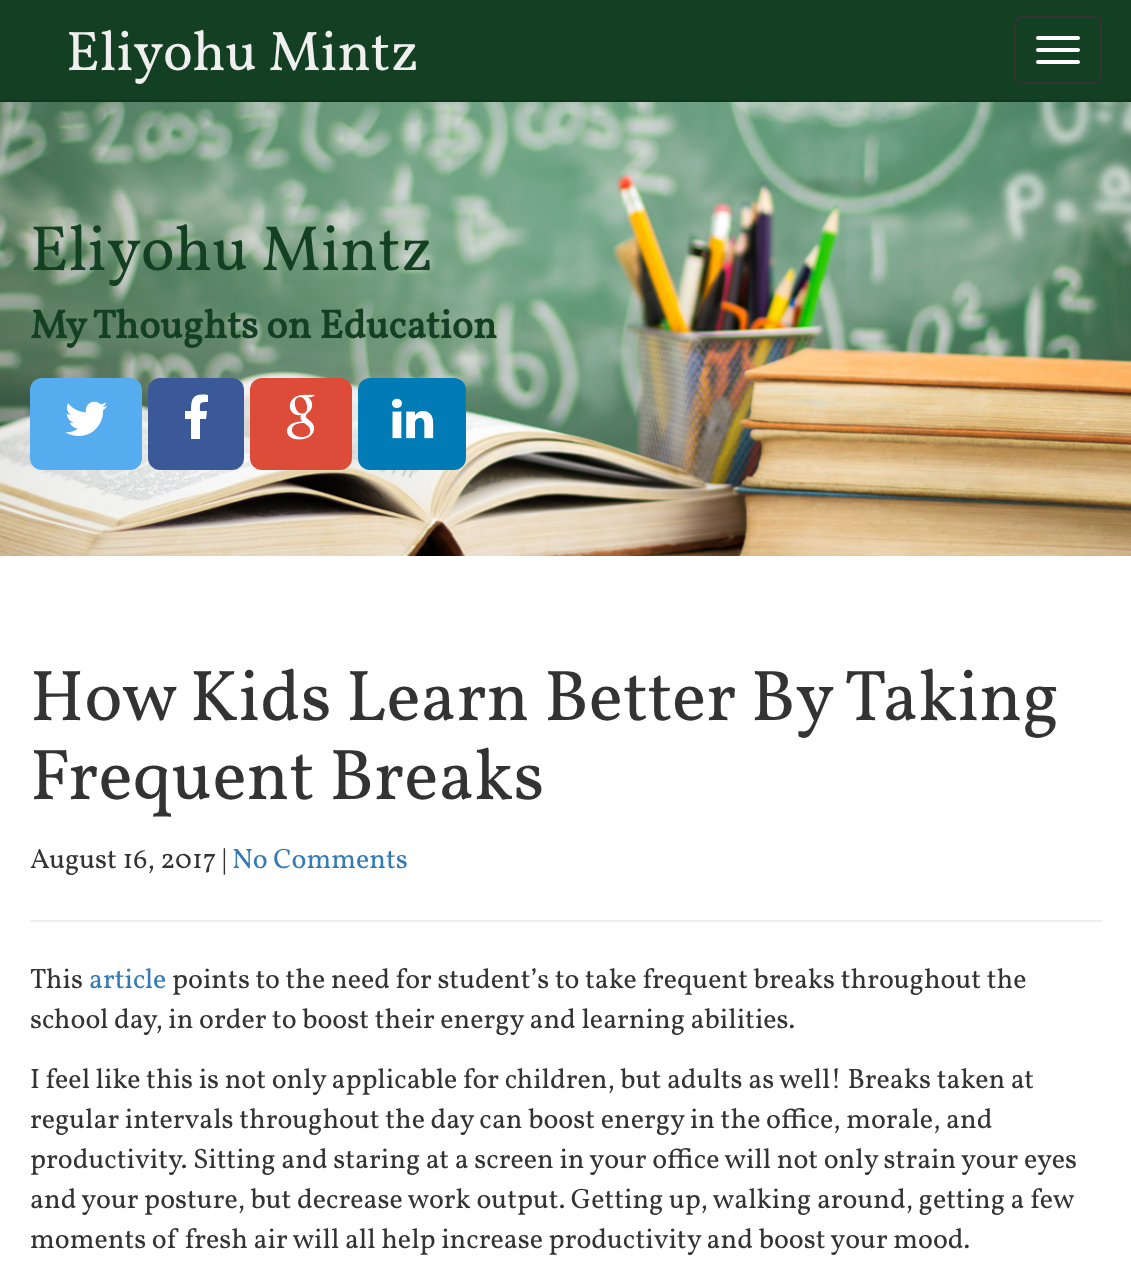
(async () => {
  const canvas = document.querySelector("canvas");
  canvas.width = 1131;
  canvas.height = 1268;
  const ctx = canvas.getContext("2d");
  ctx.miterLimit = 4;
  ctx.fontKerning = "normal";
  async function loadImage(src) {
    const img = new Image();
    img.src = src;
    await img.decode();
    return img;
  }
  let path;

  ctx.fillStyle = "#ffffff";
  ctx.fillRect(0, 0, 1131, 1268);
  ctx.fillStyle = "#133f22";
  ctx.fillRect(0, 0, 1131, 100);
  ctx.fillStyle = "#10361d";
  ctx.fillRect(0, 100, 1131, 2);
  ctx.beginPath();
  ctx.roundRect(1015, 17, 86, 66, 7);
  ctx.strokeStyle = "#333333";
  ctx.lineWidth = 2;
  ctx.stroke();
  ctx.fillStyle = "#ffffff";
  ctx.beginPath();
  ctx.roundRect(1036, 36, 44, 4, 2);
  ctx.fill();
  ctx.beginPath();
  ctx.roundRect(1036, 48, 44, 4, 2);
  ctx.fill();
  ctx.beginPath();
  ctx.roundRect(1036, 60, 44, 4, 2);
  ctx.fill();
  ctx.drawImage(await loadImage("img/1.png"), 0, 102, 1131, 454);
  ctx.fillStyle = "#55acee";
  ctx.beginPath();
  ctx.roundRect(30, 378, 112, 92, 12);
  ctx.fill();
  ctx.drawImage(await loadImage("img/2.png"), 65, 401, 43, 35);
  ctx.fillStyle = "#3b5998";
  ctx.beginPath();
  ctx.roundRect(148, 378, 96, 92, 12);
  ctx.fill();
  ctx.fillStyle = "#ffffff";
  path = new Path2D("M208 395V402C199 402 200 403 200 411H207L206 419H200V439H191V419H185V411H191C191 398 193 393 208 395Z");
  ctx.fill(path);
  ctx.fillStyle = "#dd4b39";
  ctx.beginPath();
  ctx.roundRect(250, 378, 102, 92, 12);
  ctx.fill();
  ctx.drawImage(await loadImage("img/3.png"), 287, 394, 29, 46);
  ctx.fillStyle = "#007bb6";
  ctx.beginPath();
  ctx.roundRect(358, 378, 108, 92, 12);
  ctx.fill();
  ctx.drawImage(await loadImage("img/4.png"), 392, 398, 42, 41);
  ctx.fillStyle = "#eeeeee";
  ctx.fillRect(30, 920, 1072, 2);
  ctx.font = "56px Vollkorn";
  ctx.fillStyle = "#eeefee";
  ctx.fillText("Eliyohu Mintz", 66, 70);
  ctx.font = "64px Vollkorn";
  ctx.fillStyle = "#133f22";
  ctx.fillText("Eliyohu Mintz", 30, 270);
  ctx.font = "bold 40px Vollkorn";
  ctx.fillText("My Thoughts on Education", 30, 338);
  ctx.font = "72px Vollkorn";
  ctx.fillStyle = "#333333";
  ctx.fillText("How Kids Learn Better By Taking", 30, 720);
  ctx.fillText("Frequent Breaks", 30, 799);
  ctx.font = "28px Vollkorn";
  ctx.fillText("August 16, 2017 |", 30, 868);
  ctx.fillStyle = "#337ab7";
  ctx.fillText("No Comments", 232, 868);
  ctx.fillStyle = "#333333";
  ctx.fillText("This", 30, 988);
  ctx.fillStyle = "#337ab7";
  ctx.fillText("article", 89, 988);
  ctx.fillStyle = "#333333";
  for (const [text, x, y] of [
    ["points to the need for student’s to take frequent breaks throughout the", 172, 988],
    ["school day, in order to boost their energy and learning abilities.", 30, 1028],
    ["I feel like this is not only applicable for children, but adults as well! Breaks taken at", 30, 1088],
    ["regular intervals throughout the day can boost energy in the office, morale, and", 30, 1128],
    ["productivity. Sitting and staring at a screen in your office will not only strain your eyes", 30, 1168],
    ["and your posture, but decrease work output. Getting up, walking around, getting a few", 30, 1208],
    ["moments of fresh air will all help increase productivity and boost your mood.", 30, 1248],
  ]) {
    ctx.fillText(text, x, y);
  }
})();
